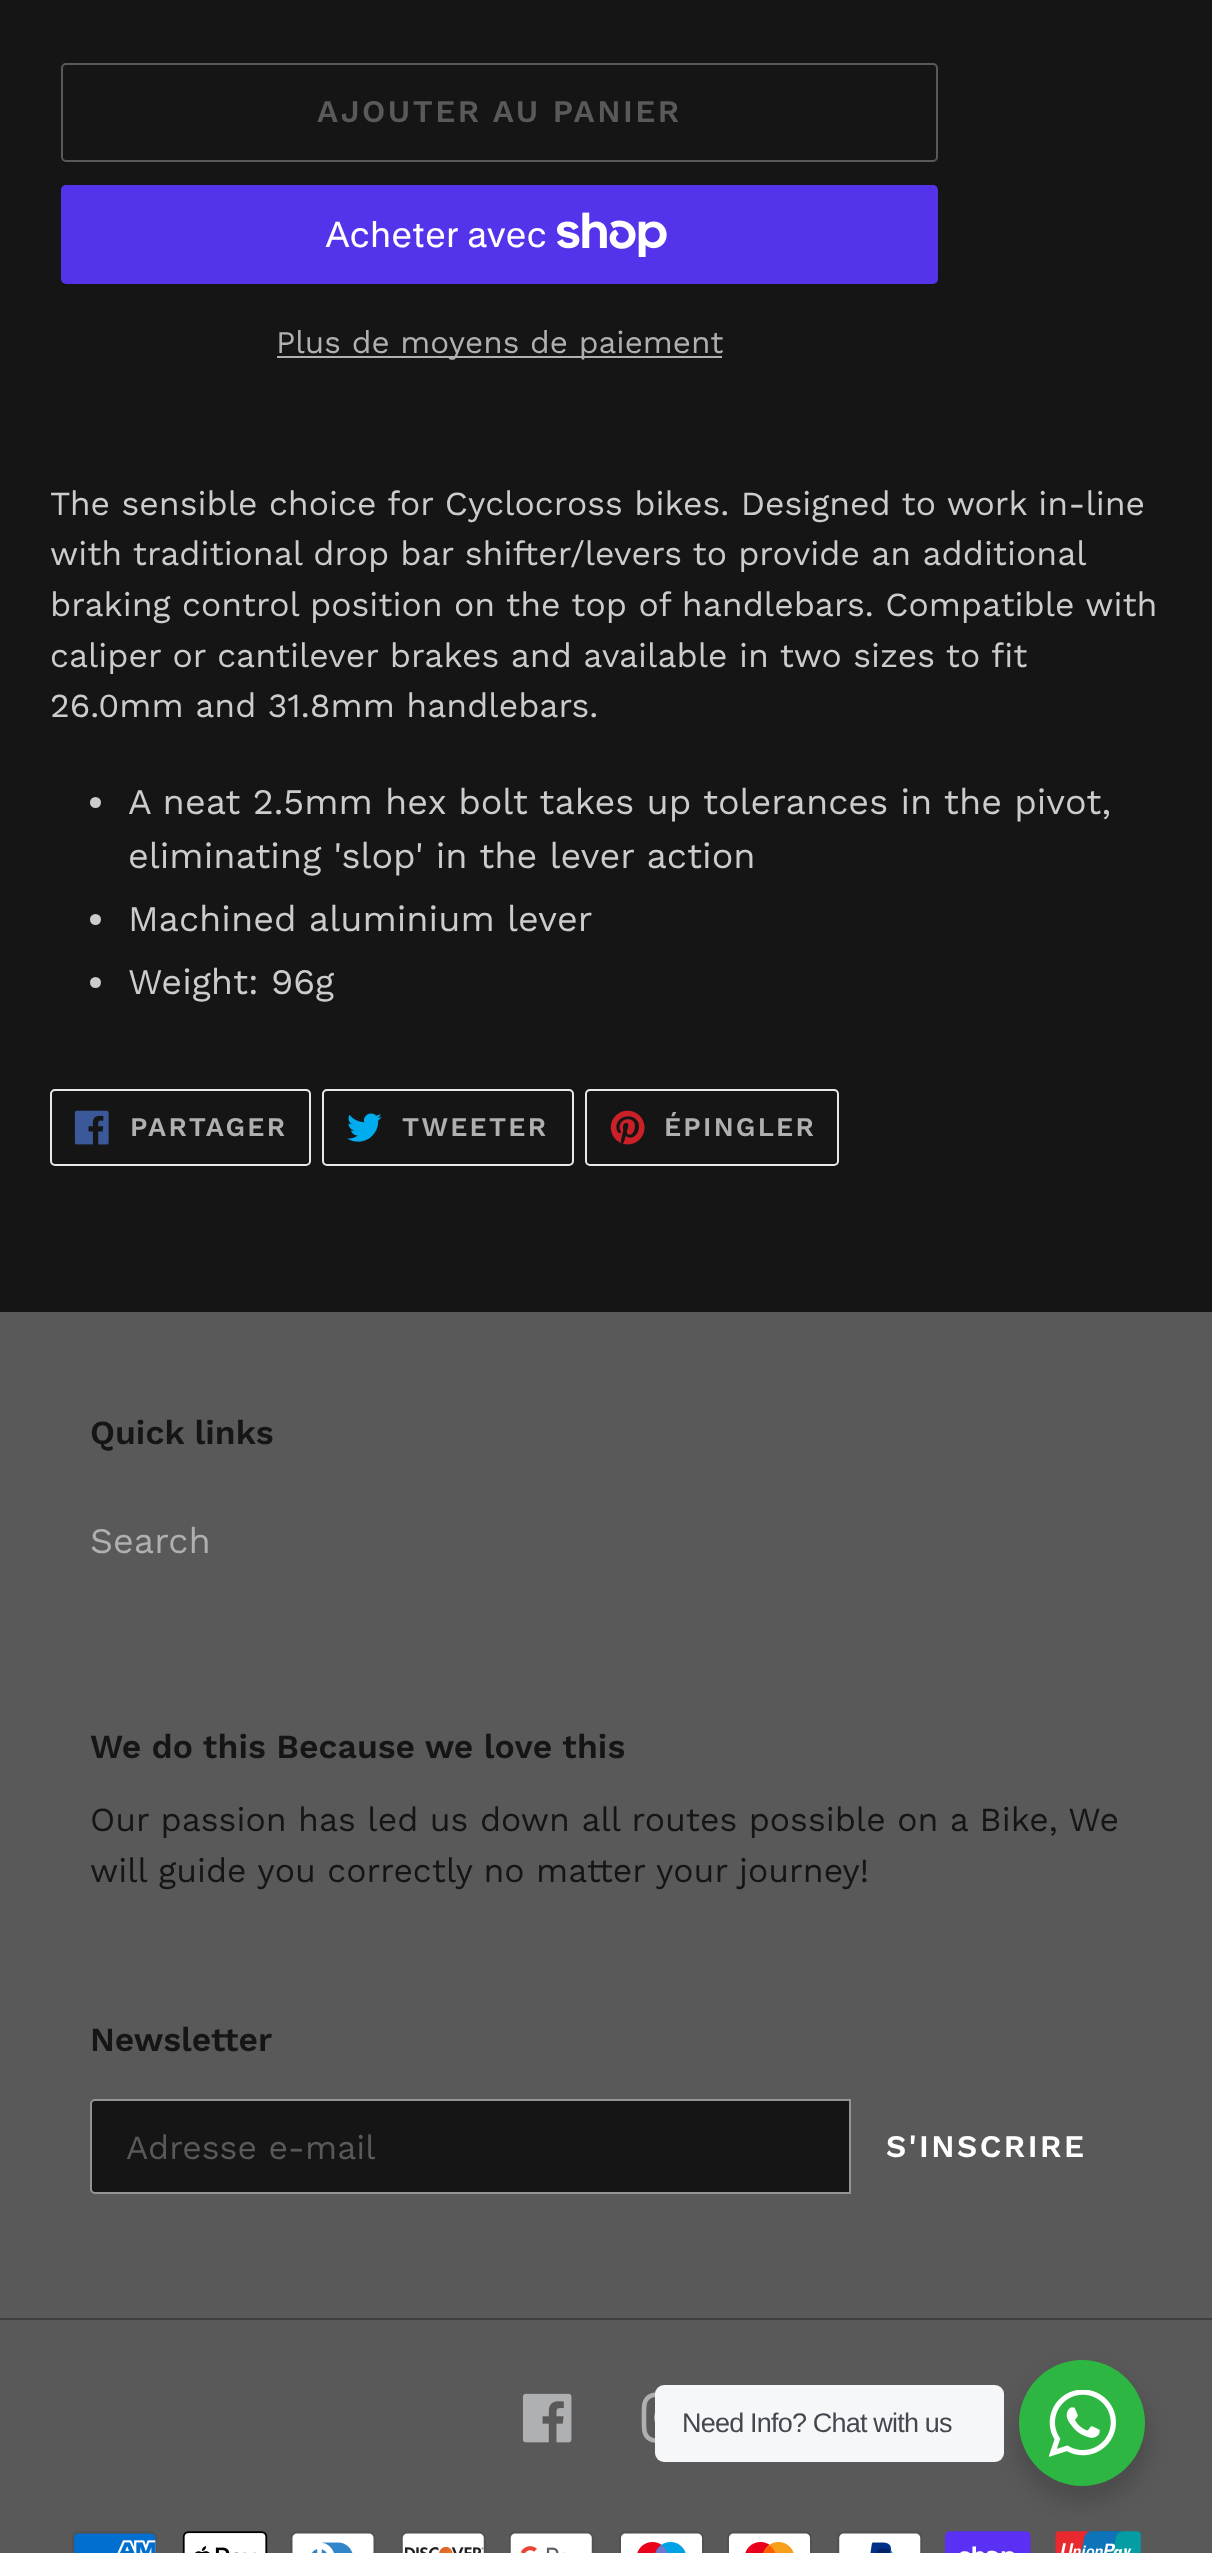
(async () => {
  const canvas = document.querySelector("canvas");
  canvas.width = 1212;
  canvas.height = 2553;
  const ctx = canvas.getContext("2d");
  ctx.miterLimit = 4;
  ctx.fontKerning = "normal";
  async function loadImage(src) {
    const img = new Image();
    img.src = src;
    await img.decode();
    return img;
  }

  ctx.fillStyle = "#151516";
  ctx.fillRect(0, 0, 1212, 2553);
  ctx.beginPath();
  ctx.roundRect(62, 64, 875, 97, 4);
  ctx.strokeStyle = "#595959";
  ctx.lineWidth = 2;
  ctx.stroke();
  ctx.fillStyle = "#5433eb";
  ctx.beginPath();
  ctx.roundRect(61, 185, 877, 99, 5);
  ctx.fill();
  ctx.drawImage(await loadImage("img/1.png"), 557, 212, 110, 45);
  ctx.fillStyle = "#afb0b1";
  ctx.fillRect(277, 356, 445, 2);
  ctx.fillStyle = "#cccccc";
  ctx.beginPath();
  ctx.arc(95.5, 802.5, 5.5, 0, Math.PI * 2);
  ctx.fill();
  ctx.beginPath();
  ctx.arc(95.5, 919.5, 5.5, 0, Math.PI * 2);
  ctx.fill();
  ctx.beginPath();
  ctx.arc(95.5, 982.5, 5.5, 0, Math.PI * 2);
  ctx.fill();
  ctx.beginPath();
  ctx.roundRect(51, 1090, 259, 75, 4);
  ctx.strokeStyle = "#e8e9eb";
  ctx.stroke();
  ctx.drawImage(await loadImage("img/2.png"), 74, 1110, 35, 35);
  ctx.beginPath();
  ctx.roundRect(323, 1090, 250, 75, 4);
  ctx.stroke();
  ctx.drawImage(await loadImage("img/3.png"), 347, 1113, 35, 29);
  ctx.beginPath();
  ctx.roundRect(586, 1090, 252, 75, 4);
  ctx.stroke();
  ctx.drawImage(await loadImage("img/4.png"), 610, 1110, 35, 35);
  ctx.fillStyle = "#595959";
  ctx.fillRect(0, 1312, 1212, 1241);
  ctx.fillStyle = "#151516";
  ctx.beginPath();
  ctx.roundRect(91, 2100, 759, 93, [4, 0, 0, 4]);
  ctx.fill();
  ctx.strokeStyle = "#949494";
  ctx.stroke();
  ctx.fillStyle = "#3f3f3f";
  ctx.fillRect(0, 2318, 1212, 2);
  ctx.drawImage(await loadImage("img/5.png"), 522, 2393, 50, 50);
  ctx.drawImage(await loadImage("img/6.png"), 641, 2392, 15, 51);
  ctx.drawImage(await loadImage("img/7.png"), 72, 2531, 85, 22);
  ctx.drawImage(await loadImage("img/8.png"), 182, 2531, 86, 22);
  ctx.drawImage(await loadImage("img/9.png"), 290, 2531, 86, 22);
  ctx.drawImage(await loadImage("img/10.png"), 401, 2531, 85, 22);
  ctx.drawImage(await loadImage("img/11.png"), 509, 2531, 85, 22);
  ctx.drawImage(await loadImage("img/12.png"), 619, 2531, 85, 22);
  ctx.drawImage(await loadImage("img/13.png"), 727, 2531, 85, 22);
  ctx.drawImage(await loadImage("img/14.png"), 837, 2531, 85, 22);
  ctx.drawImage(await loadImage("img/15.png"), 945, 2531, 86, 22);
  ctx.drawImage(await loadImage("img/16.png"), 1055, 2531, 86, 22);
  ctx.fillStyle = "rgba(0, 0, 0, 0.14)";
  ctx.filter = "blur(9px)";
  ctx.beginPath();
  ctx.roundRect(1015, 2369, 135, 135, 67.5);
  ctx.fill();
  ctx.filter = "none";
  ctx.fillStyle = "#f5f7f9";
  ctx.beginPath();
  ctx.roundRect(655, 2385, 349, 77, 9);
  ctx.fill();
  ctx.fillStyle = "#2db742";
  ctx.beginPath();
  ctx.arc(1082, 2423, 63, 0, Math.PI * 2);
  ctx.fill();
  ctx.drawImage(await loadImage("img/17.png"), 1049, 2390, 67, 67);
  ctx.letterSpacing = "2.5px";
  ctx.font = "600 31.5px Work Sans";
  ctx.fillStyle = "#595959";
  ctx.fillText("AJOUTER AU PANIER", 317, 122);
  ctx.letterSpacing = "0px";
  ctx.font = "36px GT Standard";
  ctx.fillStyle = "#ffffff";
  ctx.fillText("Acheter avec", 325, 247);
  ctx.font = "31.5px Work Sans";
  ctx.fillStyle = "#afb0b1";
  ctx.fillText("Plus de moyens de paiement", 276, 353);
  ctx.font = "33.75px Work Sans";
  ctx.fillStyle = "#cccccc";
  ctx.fillText("The sensible choice for Cyclocross bikes. Designed to work in-line", 50, 515);
  ctx.wordSpacing = "-0.25px";
  ctx.fillText("with traditional drop bar shifter/levers to provide an additional", 50, 565);
  ctx.wordSpacing = "0px";
  for (const [text, x, y] of [
    ["braking control position on the top of handlebars. Compatible with", 50, 616],
    ["caliper or cantilever brakes and available in two sizes to fit", 50, 667],
    ["26.0mm and 31.8mm handlebars.", 50, 717],
  ]) {
    ctx.fillText(text, x, y);
  }
  ctx.font = "36px Work Sans";
  for (const [text, x, y] of [
    ["A neat 2.5mm hex bolt takes up tolerances in the pivot,", 128, 814],
    ["eliminating 'slop' in the lever action", 128, 868],
    ["Machined aluminium lever", 128, 931],
    ["Weight: 96g", 128, 994],
  ]) {
    ctx.fillText(text, x, y);
  }
  ctx.letterSpacing = "2.25px";
  ctx.font = "600 27px Work Sans";
  ctx.fillStyle = "#afb0b1";
  for (const [text, x, y] of [
    ["PARTAGER", 130, 1136],
    ["TWEETER", 402, 1136],
    ["ÉPINGLER", 664, 1136],
  ]) {
    ctx.fillText(text, x, y);
  }
  ctx.letterSpacing = "0px";
  ctx.font = "600 33.75px Work Sans";
  ctx.fillStyle = "#151516";
  ctx.fillText("Quick links", 90, 1444);
  ctx.font = "36px Work Sans";
  ctx.fillStyle = "#afb0b1";
  ctx.fillText("Search", 90, 1553);
  ctx.font = "600 33.75px Work Sans";
  ctx.fillStyle = "#151516";
  ctx.fillText("We do this Because we love this", 90, 1758);
  ctx.font = "33.75px Work Sans";
  ctx.fillText("Our passion has led us down all routes possible on a Bike, We", 90, 1831);
  ctx.fillText("will guide you correctly no matter your journey!", 90, 1882);
  ctx.font = "600 33.75px Work Sans";
  ctx.fillText("Newsletter", 90, 2051);
  ctx.font = "33.75px Work Sans";
  ctx.fillStyle = "#595959";
  ctx.fillText("Adresse e-mail", 126, 2159);
  ctx.letterSpacing = "2.5px";
  ctx.font = "600 31.5px Work Sans";
  ctx.fillStyle = "#ffffff";
  ctx.fillText("S'INSCRIRE", 886, 2157);
  ctx.letterSpacing = "-0.8px";
  ctx.font = "27px Liberation Sans";
  ctx.fillStyle = "#43474e";
  ctx.fillText("Need Info? Chat with us", 682, 2432);
})();
